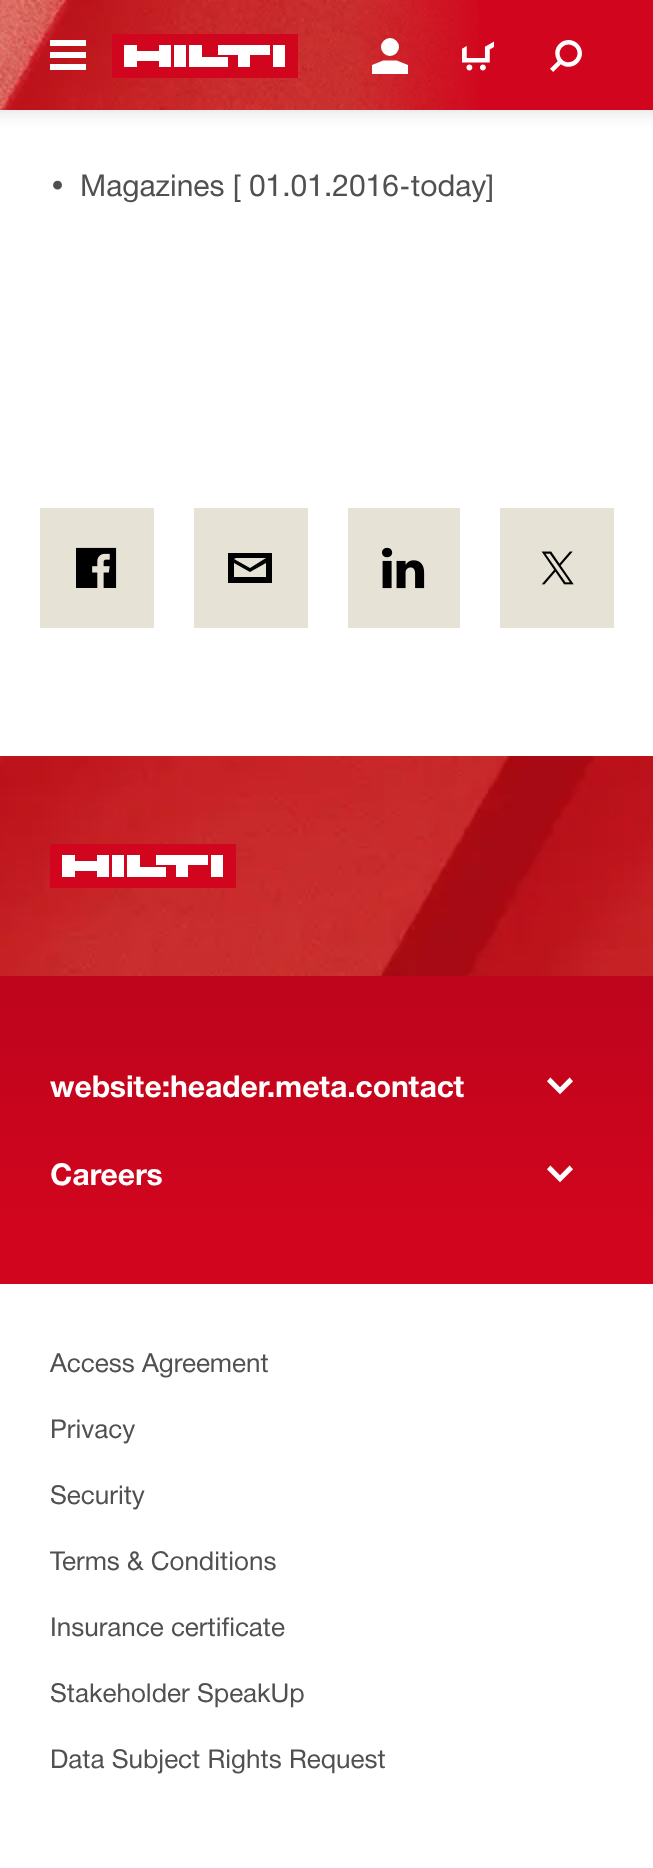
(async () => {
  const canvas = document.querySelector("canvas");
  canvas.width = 653;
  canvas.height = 1868;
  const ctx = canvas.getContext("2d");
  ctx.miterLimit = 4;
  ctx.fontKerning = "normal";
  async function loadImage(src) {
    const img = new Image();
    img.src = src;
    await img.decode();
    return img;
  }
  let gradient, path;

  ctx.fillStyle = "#ffffff";
  ctx.fillRect(0, 0, 653, 1868);
  ctx.fillStyle = "rgba(0, 0, 0, 0.15)";
  ctx.filter = "blur(10px)";
  ctx.beginPath();
  ctx.rect(-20, -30, 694, 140);
  ctx.fill();
  ctx.filter = "none";
  ctx.fillStyle = "#d2051e";
  ctx.fillRect(479, 0, 174, 110);
  ctx.drawImage(await loadImage("img/1.png"), 0, 0, 479, 110);
  ctx.drawImage(await loadImage("img/2.png"), 50, 40, 36, 30);
  ctx.fillRect(112, 34, 186, 44);
  ctx.fillStyle = "#ffffff";
  path = new Path2D("M186 67H174V45H186ZM285 45H273V67H285ZM124 67H137V61H159V67H171V45H159V51H137V45H124ZM189 67H228V57H202V45H189ZM218 55H238V67H250V55H270V45H218Z");
  ctx.fill(path);
  ctx.drawImage(await loadImage("img/3.png"), 372, 38, 36, 36);
  ctx.drawImage(await loadImage("img/4.png"), 462, 41, 32, 30);
  ctx.drawImage(await loadImage("img/5.png"), 550, 40, 32, 32);
  ctx.fillStyle = "#e7e2d6";
  ctx.fillRect(40, 508, 114, 120);
  ctx.drawImage(await loadImage("img/6.png"), 76, 547, 41, 41);
  ctx.fillRect(194, 508, 114, 120);
  ctx.fillStyle = "#000000";
  path = new Path2D("M228 553V583H272V553ZM236 558H266L250 568L234 559ZM266 577H234V563L250 572L266 563Z");
  ctx.fill(path);
  ctx.fillStyle = "#e7e2d6";
  ctx.fillRect(348, 508, 112, 120);
  ctx.drawImage(await loadImage("img/7.png"), 382, 547, 43, 42);
  ctx.fillRect(500, 508, 114, 120);
  ctx.drawImage(await loadImage("img/8.png"), 541, 551, 33, 34);
  ctx.drawImage(await loadImage("img/9.png"), 0, 756, 653, 220);
  ctx.fillStyle = "#d2051e";
  ctx.fillRect(50, 844, 186, 44);
  ctx.fillStyle = "#ffffff";
  path = new Path2D("M124 877H112V855H124ZM223 855H211V877H223ZM62 877H75V871H97V877H109V855H97V861H75V855H62ZM127 877H166V867H140V855H127ZM156 865H176V877H188V865H208V855H156Z");
  ctx.fill(path);
  gradient = ctx.createLinearGradient(327, 976, 327, 1284);
  gradient.addColorStop(0, "#bd051c");
  gradient.addColorStop(0.86, "#d2051e");
  ctx.fillStyle = gradient;
  ctx.fillRect(0, 976, 653, 308);
  ctx.drawImage(await loadImage("img/10.png"), 547, 1077, 26, 18);
  ctx.drawImage(await loadImage("img/11.png"), 547, 1165, 26, 18);
  ctx.font = "30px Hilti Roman";
  ctx.fillStyle = "#524f53";
  ctx.fillText("•", 50, 196);
  ctx.fillText("Magazines [ 01.01.2016-today]", 80, 196);
  ctx.font = "bold 30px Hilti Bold";
  ctx.fillStyle = "#ffffff";
  ctx.fillText("website:header.meta.contact", 50, 1097);
  ctx.fillText("Careers", 50, 1185);
  ctx.font = "26px Hilti Roman";
  ctx.fillStyle = "#524f53";
  for (const [text, x, y] of [
    ["Access Agreement", 50, 1372],
    ["Privacy", 50, 1438],
    ["Security", 50, 1504],
    ["Terms & Conditions", 50, 1570],
    ["Insurance certificate", 50, 1636],
    ["Stakeholder SpeakUp", 50, 1702],
    ["Data Subject Rights Request", 50, 1768],
  ]) {
    ctx.fillText(text, x, y);
  }
})();
